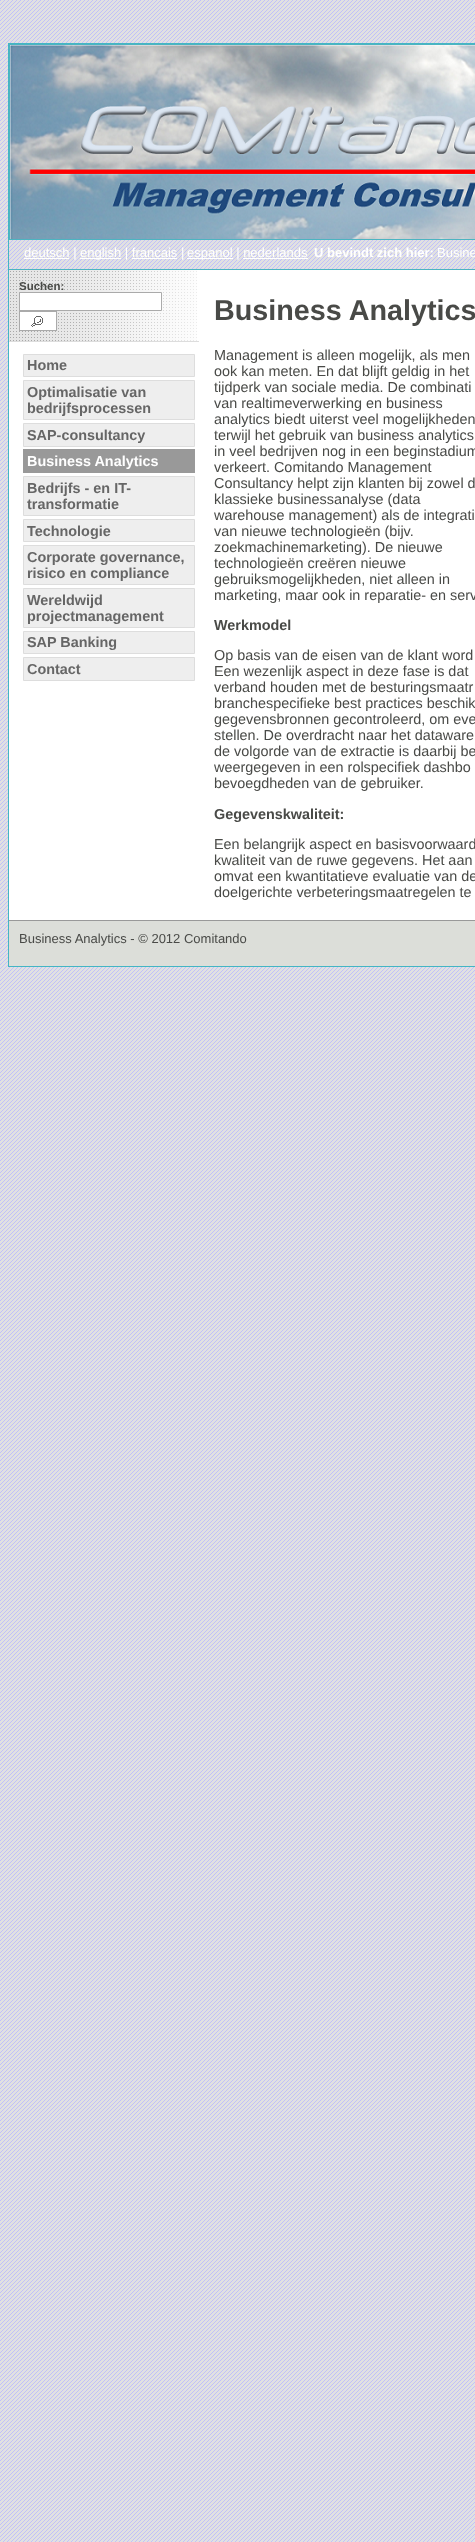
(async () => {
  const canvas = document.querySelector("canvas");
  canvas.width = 475;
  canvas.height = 2542;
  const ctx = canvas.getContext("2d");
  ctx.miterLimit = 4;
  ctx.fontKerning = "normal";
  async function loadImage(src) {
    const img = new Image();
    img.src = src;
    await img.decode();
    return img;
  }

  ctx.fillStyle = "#ffffff";
  ctx.fillRect(0, 0, 475, 2542);
  ctx.drawImage(await loadImage("img/1.png"), 0, 0, 475, 2542);
  ctx.strokeStyle = "#44b5c4";
  ctx.strokeRect(8.5, 43.5, 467, 923);
  ctx.drawImage(await loadImage("img/2.png"), 10, 45, 465, 194);
  ctx.strokeStyle = "#4cb4c1";
  ctx.strokeRect(9.5, 44.5, 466, 195);
  for (const [x, y, w, h, color] of [
    [9, 269, 466, 1, "#4cb4c1"],
    [24, 258, 45, 1, "#ffffff"],
    [80, 258, 41, 1, "#ffffff"],
    [187, 258, 46, 1, "#ffffff"],
    [132, 258, 45, 1, "#ffffff"],
    [243, 258, 65, 1, "#ffffff"],
    [9, 270, 466, 650, "#ffffff"],
  ]) {
    ctx.fillStyle = color;
    ctx.fillRect(x, y, w, h);
  }
  ctx.drawImage(await loadImage("img/3.png"), 9, 270, 188, 71);
  ctx.fillStyle = "#dddddd";
  ctx.fillRect(9, 341, 190, 1);
  ctx.fillStyle = "#ffffff";
  ctx.beginPath();
  ctx.rect(19.5, 292.5, 142, 18);
  ctx.fill();
  ctx.strokeStyle = "#aaaaaa";
  ctx.stroke();
  ctx.strokeRect(19.5, 311.5, 37, 19);
  ctx.drawImage(await loadImage("img/4.png"), 20, 312, 36, 18);
  ctx.fillStyle = "#eeeeee";
  ctx.beginPath();
  ctx.rect(23.5, 354.5, 171, 22);
  ctx.fill();
  ctx.strokeStyle = "#dddddd";
  ctx.stroke();
  ctx.beginPath();
  ctx.rect(23.5, 380.5, 171, 39);
  ctx.fill();
  ctx.stroke();
  ctx.beginPath();
  ctx.rect(23.5, 423.5, 171, 23);
  ctx.fill();
  ctx.stroke();
  ctx.fillStyle = "#999999";
  ctx.fillRect(23, 449, 172, 24);
  ctx.fillStyle = "#eeeeee";
  ctx.beginPath();
  ctx.rect(23.5, 476.5, 171, 39);
  ctx.fill();
  ctx.stroke();
  ctx.beginPath();
  ctx.rect(23.5, 519.5, 171, 22);
  ctx.fill();
  ctx.stroke();
  ctx.beginPath();
  ctx.rect(23.5, 545.5, 171, 39);
  ctx.fill();
  ctx.stroke();
  ctx.beginPath();
  ctx.rect(23.5, 588.5, 171, 39);
  ctx.fill();
  ctx.stroke();
  ctx.beginPath();
  ctx.rect(23.5, 631.5, 171, 22);
  ctx.fill();
  ctx.stroke();
  ctx.beginPath();
  ctx.rect(23.5, 657.5, 171, 23);
  ctx.fill();
  ctx.stroke();
  ctx.fillStyle = "#dcded9";
  ctx.fillRect(9, 921, 466, 45);
  ctx.fillStyle = "#999999";
  ctx.fillRect(9, 920, 466, 1);
  ctx.font = "13px Liberation Sans";
  ctx.fillStyle = "#ffffff";
  for (const [text, x, y] of [
    ["deutsch |", 24, 257],
    ["english | francais |", 80, 257],
    ["espanol | nederlands", 187, 257],
  ]) {
    ctx.fillText(text, x, y);
  }
  ctx.font = "bold 13px Liberation Sans";
  ctx.fillText("U bevindt zich hier:", 314, 257);
  ctx.font = "13px Liberation Sans";
  ctx.fillText("Busine", 437, 257);
  ctx.font = "bold 11.5px Liberation Sans";
  ctx.fillStyle = "#494a47";
  ctx.fillText("Suchen:", 19, 290);
  ctx.font = "bold 14.4px Liberation Sans";
  ctx.fillStyle = "#666666";
  for (const [text, x, y] of [
    ["Home", 27, 370],
    ["Optimalisatie van", 27, 397],
    ["bedrijfsprocessen", 27, 413],
    ["SAP-consultancy", 27, 440],
  ]) {
    ctx.fillText(text, x, y);
  }
  ctx.fillStyle = "#ffffff";
  ctx.fillText("Business Analytics", 27, 466);
  ctx.fillStyle = "#666666";
  for (const [text, x, y] of [
    ["Bedrijfs - en IT-", 27, 493],
    ["transformatie", 27, 509],
    ["Technologie", 27, 536],
    ["Corporate governance,", 27, 562],
    ["risico en compliance", 27, 578],
    ["Wereldwijd", 27, 605],
    ["projectmanagement", 27, 621],
    ["SAP Banking", 27, 647],
    ["Contact", 27, 674],
  ]) {
    ctx.fillText(text, x, y);
  }
  ctx.font = "bold 28.75px Liberation Sans";
  ctx.fillStyle = "#494a47";
  ctx.fillText("Business Analytics", 214, 320);
  ctx.font = "14.4px Liberation Sans";
  for (const [text, x, y] of [
    ["Management is alleen mogelijk, als men", 214, 360],
    ["ook kan meten. En dat blijft geldig in het", 214, 376],
    ["tijdperk van sociale media. De combinati", 214, 392],
    ["van realtimeverwerking en business", 214, 408],
    ["analytics biedt uiterst veel mogelijkheden", 214, 424],
    ["terwijl het gebruik van business analytics", 214, 440],
    ["in veel bedrijven nog in een beginstadium", 214, 456],
    ["verkeert. Comitando Management", 214, 472],
    ["Consultancy helpt zijn klanten bij zowel d", 214, 488],
    ["klassieke businessanalyse (data", 214, 504],
    ["warehouse management) als de integrati", 214, 520],
    ["van nieuwe technologieën (bijv.", 214, 536],
    ["zoekmachinemarketing). De nieuwe", 214, 552],
    ["technologieën creëren nieuwe", 214, 568],
    ["gebruiksmogelijkheden, niet alleen in", 214, 584],
    ["marketing, maar ook in reparatie- en serv", 214, 600],
  ]) {
    ctx.fillText(text, x, y);
  }
  ctx.font = "bold 14.4px Liberation Sans";
  ctx.fillText("Werkmodel", 214, 630);
  ctx.font = "14.4px Liberation Sans";
  for (const [text, x, y] of [
    ["Op basis van de eisen van de klant word", 214, 660],
    ["Een wezenlijk aspect in deze fase is dat", 214, 676],
    ["verband houden met de besturingsmaatr", 214, 692],
    ["branchespecifieke best practices beschik", 214, 708],
    ["gegevensbronnen gecontroleerd, om eve", 214, 724],
    ["stellen. De overdracht naar het dataware", 214, 740],
    ["de volgorde van de extractie is daarbij be", 214, 756],
    ["weergegeven in een rolspecifiek dashbo", 214, 772],
    ["bevoegdheden van de gebruiker.", 214, 788],
  ]) {
    ctx.fillText(text, x, y);
  }
  ctx.font = "bold 14.4px Liberation Sans";
  ctx.fillText("Gegevenskwaliteit:", 214, 819);
  ctx.font = "14.4px Liberation Sans";
  for (const [text, x, y] of [
    ["Een belangrijk aspect en basisvoorwaard", 214, 849],
    ["kwaliteit van de ruwe gegevens. Het aan", 214, 865],
    ["omvat een kwantitatieve evaluatie van de", 214, 881],
    ["doelgerichte verbeteringsmaatregelen te", 214, 897],
  ]) {
    ctx.fillText(text, x, y);
  }
  ctx.font = "13px Liberation Sans";
  ctx.fillText("Business Analytics - © 2012 Comitando", 19, 943);
})();
